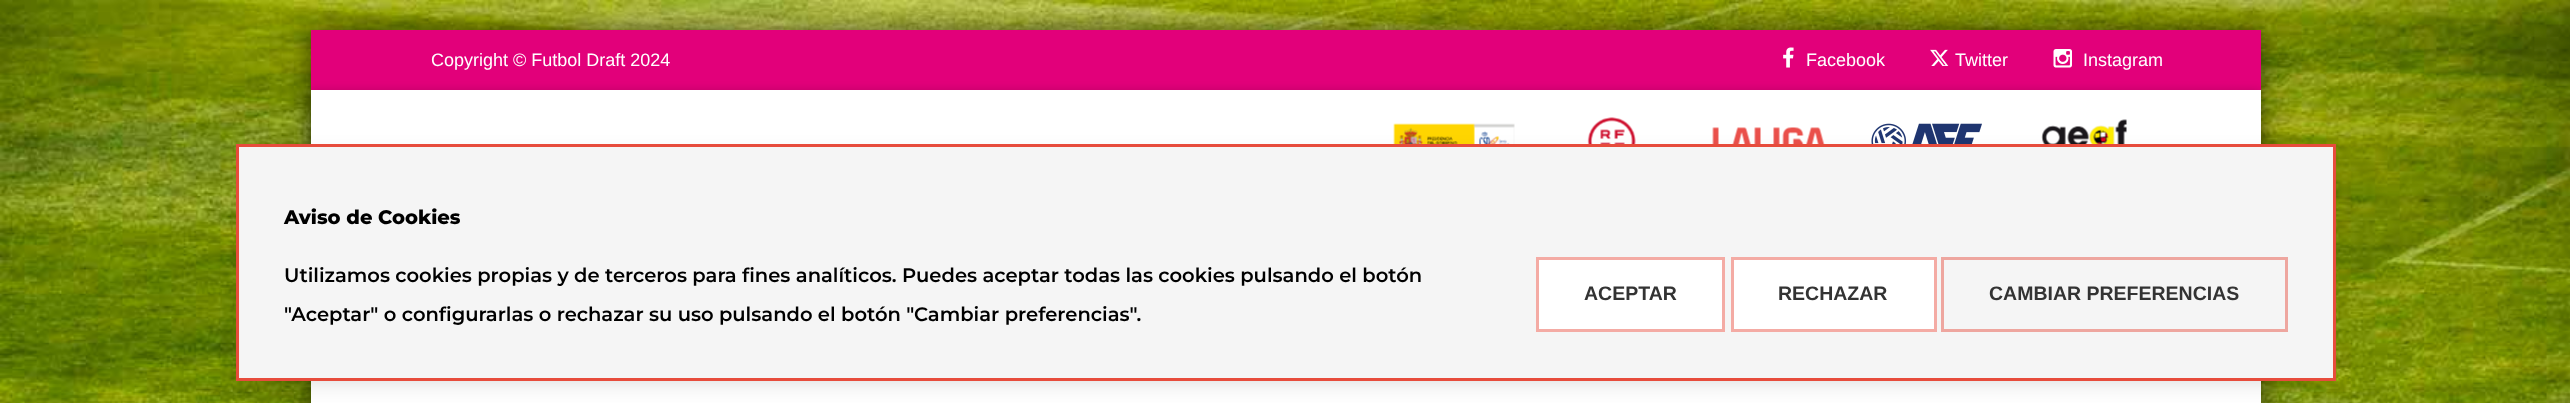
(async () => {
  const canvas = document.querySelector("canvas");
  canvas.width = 2570;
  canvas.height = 403;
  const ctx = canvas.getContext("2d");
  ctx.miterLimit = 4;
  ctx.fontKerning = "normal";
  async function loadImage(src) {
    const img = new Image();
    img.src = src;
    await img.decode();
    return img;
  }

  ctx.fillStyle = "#ffffff";
  ctx.fillRect(0, 0, 2570, 403);
  ctx.drawImage(await loadImage("img/1.png"), 0, 0, 2570, 403);
  ctx.fillStyle = "rgba(0, 0, 0, 0.6)";
  ctx.filter = "blur(13.5px)";
  ctx.beginPath();
  ctx.rect(311, 30, 1950, 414);
  ctx.fill();
  ctx.filter = "none";
  ctx.fillStyle = "#ffffff";
  ctx.fillRect(311, 381, 1950, 22);
  ctx.fillStyle = "#e2007a";
  ctx.fillRect(311, 30, 1950, 60);
  ctx.drawImage(await loadImage("img/2.png"), 1783, 47, 11, 21);
  ctx.drawImage(await loadImage("img/3.png"), 1930, 49, 19, 17);
  ctx.drawImage(await loadImage("img/4.png"), 2053, 49, 19, 19);
  ctx.fillStyle = "rgba(0, 0, 0, 0.15)";
  ctx.filter = "blur(4px)";
  ctx.beginPath();
  ctx.rect(311, 90, 1950, 207);
  ctx.fill();
  ctx.filter = "none";
  ctx.fillStyle = "#ffffff";
  ctx.fillRect(311, 90, 1950, 54);
  ctx.drawImage(await loadImage("img/5.png"), 1393, 123, 122, 21);
  ctx.drawImage(await loadImage("img/6.png"), 1587, 117, 49, 27);
  ctx.drawImage(await loadImage("img/7.png"), 1712, 127, 113, 17);
  ctx.drawImage(await loadImage("img/8.png"), 1871, 123, 111, 21);
  ctx.drawImage(await loadImage("img/9.png"), 2041, 119, 86, 25);
  ctx.fillStyle = "rgba(0, 0, 0, 0.25)";
  ctx.filter = "blur(15px)";
  ctx.beginPath();
  ctx.rect(251, 167, 2070, 207);
  ctx.fill();
  ctx.filter = "none";
  ctx.fillStyle = "#f5f5f5";
  ctx.beginPath();
  ctx.rect(237.5, 145.5, 2097, 234);
  ctx.fill();
  ctx.strokeStyle = "#e74c3c";
  ctx.lineWidth = 3;
  ctx.stroke();
  ctx.fillStyle = "#ffffff";
  ctx.beginPath();
  ctx.rect(1537.5, 258.5, 186, 72);
  ctx.fill();
  ctx.strokeStyle = "#f4aba4";
  ctx.stroke();
  ctx.beginPath();
  ctx.rect(1732.5, 258.5, 203, 72);
  ctx.fill();
  ctx.stroke();
  ctx.strokeStyle = "#eea69f";
  ctx.strokeRect(1942.5, 258.5, 344, 72);
  ctx.font = "18px Arimo";
  for (const [text, x, y] of [
    ["Copyright © Futbol Draft 2024", 431, 66],
    ["Facebook", 1806, 66],
    ["Twitter", 1955, 66],
    ["Instagram", 2083, 66],
  ]) {
    ctx.fillText(text, x, y);
  }
  ctx.font = "800 19.5px Montserrat";
  ctx.fillStyle = "#000000";
  ctx.fillText("Aviso de Cookies", 284, 224);
  ctx.font = "600 19.5px Montserrat";
  ctx.fillText("Utilizamos cookies propias y de terceros para fines analíticos. Puedes aceptar todas las cookies pulsando el botón", 284, 282);
  ctx.fillText("\"Aceptar\" o configurarlas o rechazar su uso pulsando el botón \"Cambiar preferencias\".", 284, 321);
  ctx.font = "bold 19.5px Arimo";
  ctx.fillStyle = "#333333";
  for (const [text, x, y] of [
    ["ACEPTAR", 1584, 300],
    ["RECHAZAR", 1778, 300],
    ["CAMBIAR PREFERENCIAS", 1989, 300],
  ]) {
    ctx.fillText(text, x, y);
  }
})();
